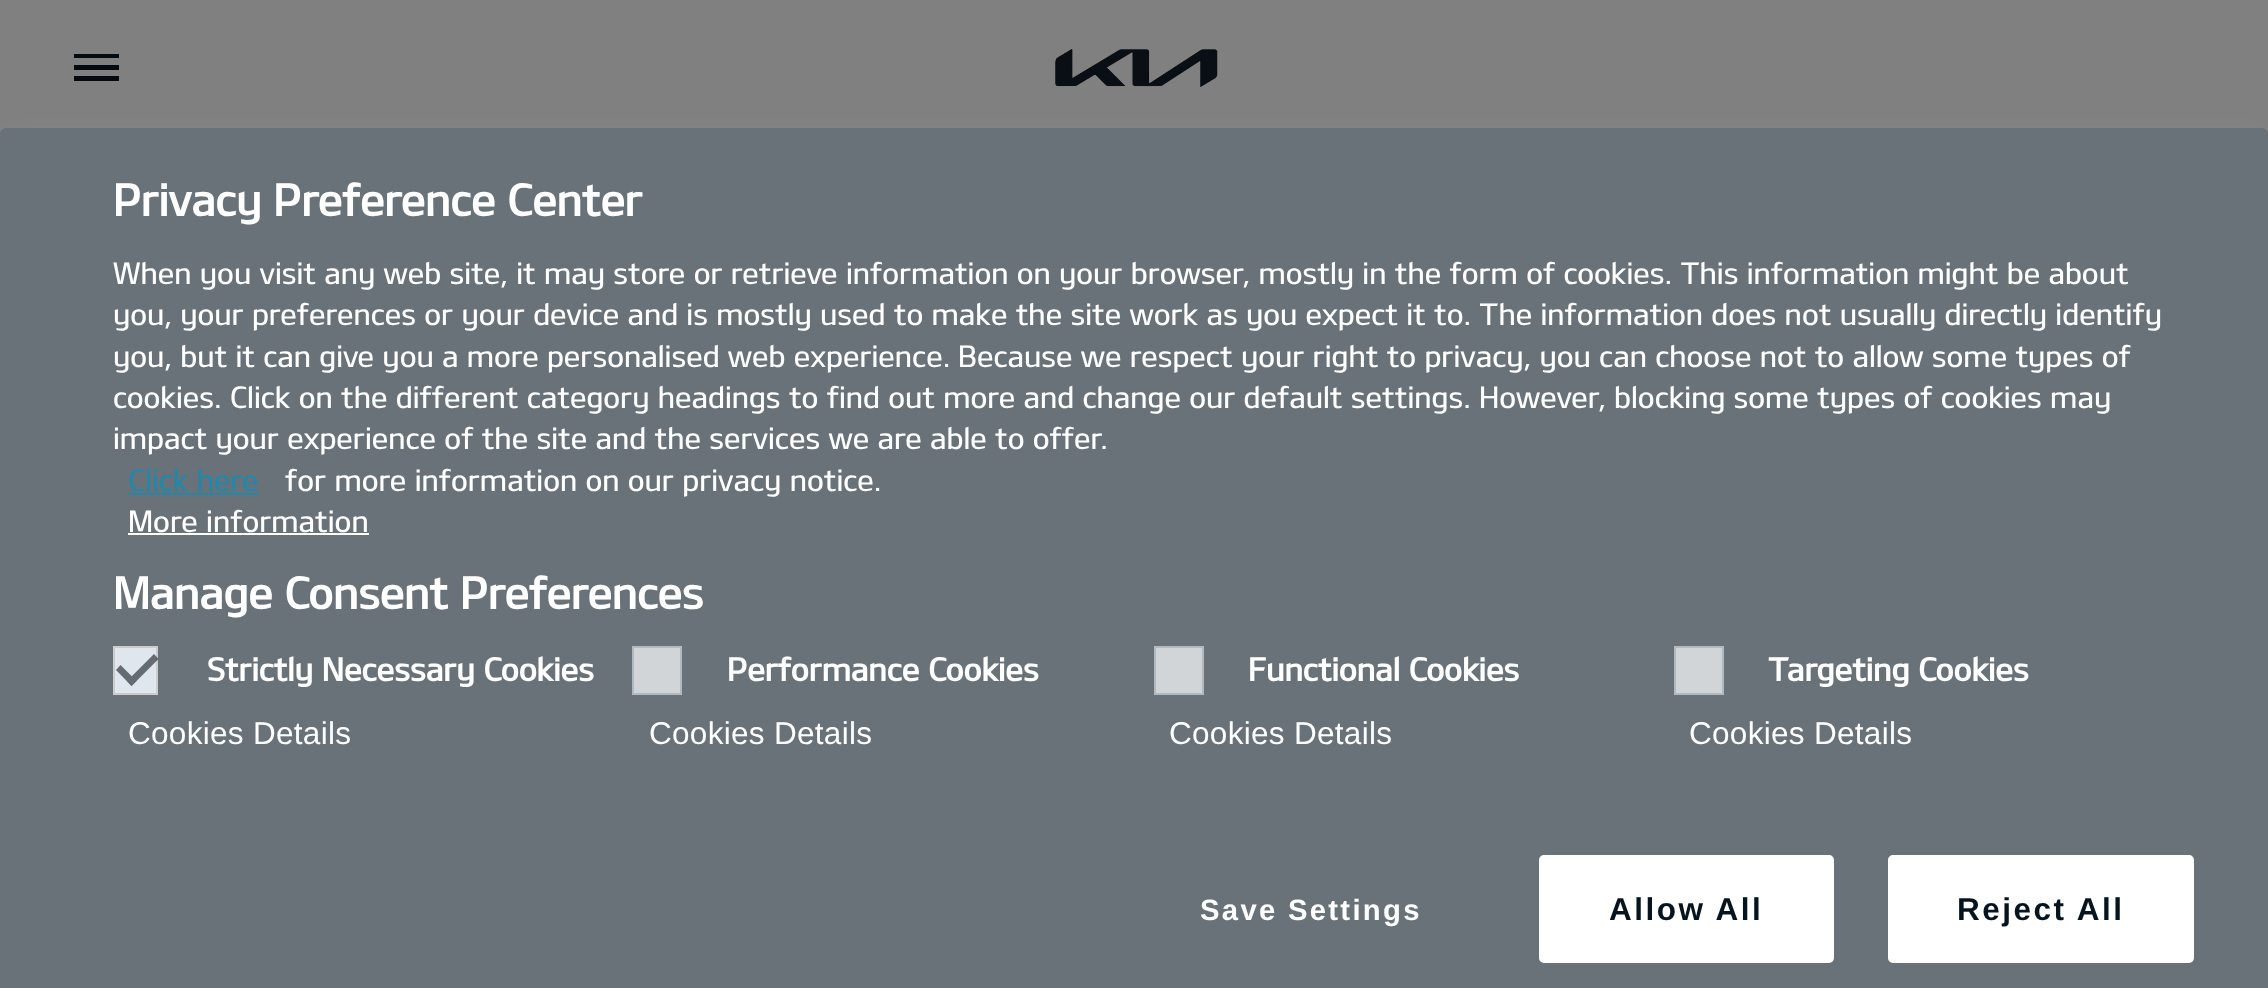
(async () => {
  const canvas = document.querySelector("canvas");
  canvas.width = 2268;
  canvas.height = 988;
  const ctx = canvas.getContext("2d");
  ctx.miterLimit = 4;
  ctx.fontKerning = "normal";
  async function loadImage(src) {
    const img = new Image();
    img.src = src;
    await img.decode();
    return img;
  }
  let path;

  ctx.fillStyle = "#808080";
  ctx.fillRect(0, 0, 2268, 988);
  ctx.fillStyle = "#030a10";
  path = new Path2D("M74 54H119V58H74ZM74 76H119V81H74ZM74 65H119V70H74Z");
  ctx.fill(path, "evenodd");
  ctx.drawImage(await loadImage("img/1.png"), 1055, 49, 163, 38);
  ctx.fillStyle = "#999999";
  ctx.filter = "blur(11px)";
  ctx.beginPath();
  ctx.rect(7, 140, 2254, 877);
  ctx.fill();
  ctx.filter = "none";
  ctx.fillStyle = "#697279";
  ctx.beginPath();
  ctx.roundRect(0, 128, 2268, 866, 6);
  ctx.fill();
  ctx.fillStyle = "#2387aa";
  ctx.fillRect(128, 493, 131, 2);
  ctx.fillStyle = "#ffffff";
  ctx.fillRect(128, 533, 241, 2);
  ctx.fillStyle = "#dfe6ed";
  ctx.beginPath();
  ctx.rect(114, 647, 43, 47);
  ctx.fill();
  ctx.strokeStyle = "#cccccc";
  ctx.lineWidth = 2;
  ctx.stroke();
  ctx.fillStyle = "rgba(45, 55, 60, 0.7)";
  path = new Path2D("M154 654L158.5 659L131.5 686L127 681Z");
  ctx.fill(path);
  ctx.fillStyle = "#626c71";
  path = new Path2D("M120.5 665L136.5 681L131.5 686L116 670Z");
  ctx.fill(path);
  ctx.fillStyle = "#d2d5d7";
  ctx.beginPath();
  ctx.rect(633, 647, 48, 47);
  ctx.fill();
  ctx.strokeStyle = "#afbac2";
  ctx.stroke();
  ctx.beginPath();
  ctx.rect(1155, 647, 48, 47);
  ctx.fill();
  ctx.stroke();
  ctx.beginPath();
  ctx.rect(1675, 647, 48, 47);
  ctx.fill();
  ctx.stroke();
  ctx.fillStyle = "#ffffff";
  ctx.beginPath();
  ctx.roundRect(1540, 856, 293, 106, 4);
  ctx.fill();
  ctx.strokeStyle = "#ffffff";
  ctx.stroke();
  ctx.beginPath();
  ctx.roundRect(1889, 856, 304, 106, 4);
  ctx.fill();
  ctx.stroke();
  ctx.font = "bold 43.25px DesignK";
  ctx.fillText("Privacy Preference Center", 113, 216);
  ctx.font = "29.52px DesignK";
  for (const [text, x, y] of [
    ["When you visit any web site, it may store or retrieve information on your browser, mostly in the form of cookies. This information might be about", 113, 284],
    ["you, your preferences or your device and is mostly used to make the site work as you expect it to. The information does not usually directly identify", 113, 325],
    ["you, but it can give you a more personalised web experience.", 113, 367],
    ["Because we respect your right to privacy, you can choose not to allow some types of", 958, 367],
    ["cookies. Click on the different category headings to find out more and change our default settings. However, blocking some types of cookies may", 113, 408],
    ["impact your experience of the site and the services we are able to offer.", 113, 449],
  ]) {
    ctx.fillText(text, x, y);
  }
  ctx.fillStyle = "#2387aa";
  ctx.fillText("Click here", 128, 491);
  ctx.fillStyle = "#ffffff";
  ctx.fillText("for more information on our privacy notice.", 285, 491);
  ctx.fillText("More information", 128, 532);
  ctx.font = "bold 43.25px DesignK";
  ctx.fillText("Manage Consent Preferences", 113, 609);
  ctx.font = "bold 31.5px DesignK";
  ctx.fillText("Strictly Necessary Cookies", 207, 681);
  ctx.letterSpacing = "0.3px";
  ctx.font = "31.5px Liberation Sans";
  ctx.fillText("Cookies Details", 128, 744);
  ctx.letterSpacing = "0px";
  ctx.font = "bold 31.5px DesignK";
  ctx.fillText("Performance Cookies", 727, 681);
  ctx.letterSpacing = "0.3px";
  ctx.font = "31.5px Liberation Sans";
  ctx.fillText("Cookies Details", 649, 744);
  ctx.letterSpacing = "0px";
  ctx.font = "bold 31.5px DesignK";
  ctx.fillText("Functional Cookies", 1248, 681);
  ctx.letterSpacing = "0.3px";
  ctx.font = "31.5px Liberation Sans";
  ctx.fillText("Cookies Details", 1169, 744);
  ctx.letterSpacing = "0px";
  ctx.font = "bold 31.5px DesignK";
  ctx.fillText("Targeting Cookies", 1768, 681);
  ctx.letterSpacing = "0.3px";
  ctx.font = "31.5px Liberation Sans";
  ctx.fillText("Cookies Details", 1689, 744);
  ctx.letterSpacing = "2.3px";
  ctx.font = "bold 29.25px Liberation Sans";
  ctx.fillText("Save Settings", 1200, 920);
  ctx.letterSpacing = "2.5px";
  ctx.font = "bold 31.5px Liberation Sans";
  ctx.fillStyle = "#05141f";
  ctx.fillText("Allow All", 1609, 920);
  ctx.fillText("Reject All", 1957, 920);
})();
